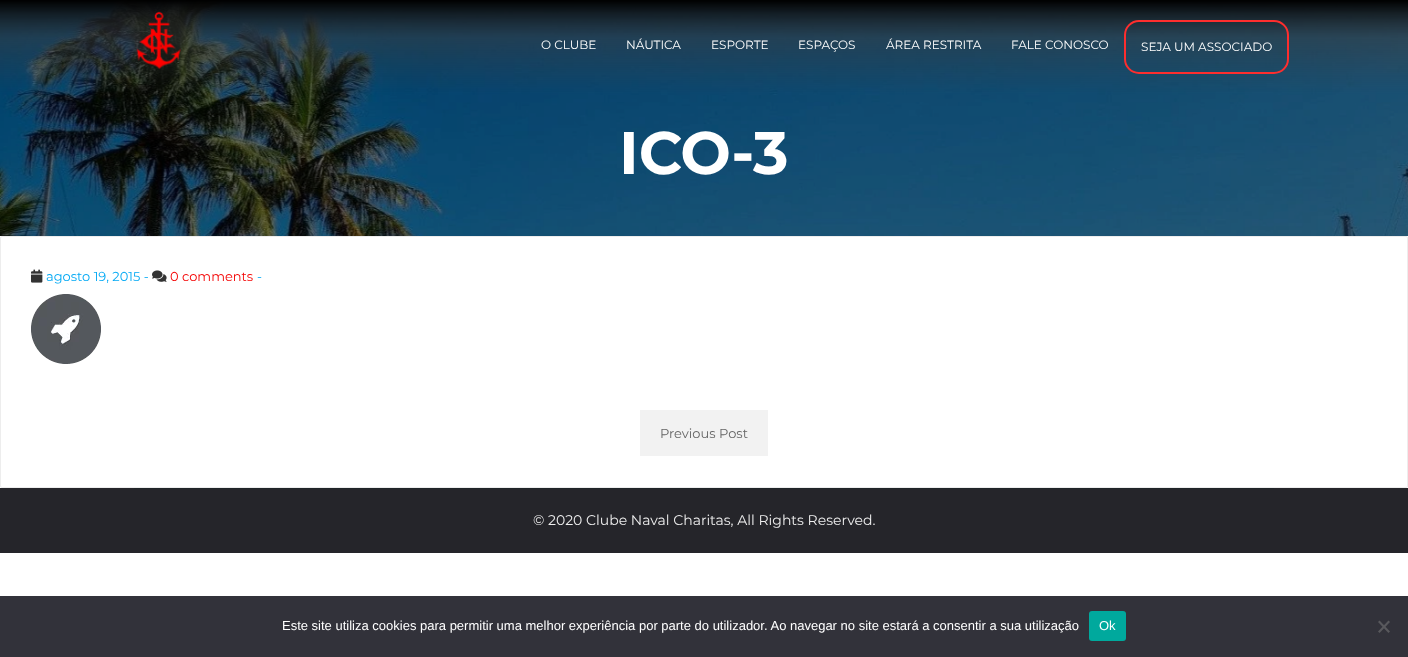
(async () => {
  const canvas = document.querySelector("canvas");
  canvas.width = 1408;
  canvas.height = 657;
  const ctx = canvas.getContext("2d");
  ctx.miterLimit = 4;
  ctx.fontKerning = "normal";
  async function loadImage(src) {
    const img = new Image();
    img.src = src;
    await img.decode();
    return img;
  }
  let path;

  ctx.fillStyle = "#ffffff";
  ctx.fillRect(0, 0, 1408, 657);
  ctx.drawImage(await loadImage("img/2.png"), 0, 0, 1408, 236);
  ctx.drawImage(await loadImage("img/1.png"), 136, 11, 45, 59);
  ctx.beginPath();
  ctx.roundRect(1125, 21, 163, 52, 14);
  ctx.strokeStyle = "#fe2e2e";
  ctx.lineWidth = 2;
  ctx.stroke();
  ctx.beginPath();
  ctx.roundRect(0.5, 236.5, 1407, 251, 1.5);
  ctx.strokeStyle = "#ededed";
  ctx.lineWidth = 1;
  ctx.stroke();
  ctx.drawImage(await loadImage("img/3.png"), 31, 269, 12, 14);
  ctx.drawImage(await loadImage("img/4.png"), 152, 270, 15, 12);
  ctx.drawImage(await loadImage("img/5.png"), 31, 294, 70, 70);
  for (const [x, y, w, h, color] of [
    [640, 410, 128, 46, "#f2f2f2"],
    [0, 488, 1408, 65, "#25252a"],
    [134, 488, 1140, 1, "#1f2428"],
    [0, 596, 1408, 61, "#32323a"],
  ]) {
    ctx.fillStyle = color;
    ctx.fillRect(x, y, w, h);
  }
  ctx.fillStyle = "#00a99d";
  ctx.beginPath();
  ctx.roundRect(1089, 611, 37, 30, 3);
  ctx.fill();
  ctx.fillStyle = "#59595d";
  path = new Path2D("M1388.5 620.5L1390 622L1379.5 633L1378 631.5Z");
  ctx.fill(path);
  path = new Path2D("M1378 622L1379.5 620.5L1390 631.5L1388.5 633Z");
  ctx.fill(path);
  ctx.font = "12px Montserrat";
  ctx.fillStyle = "#ffffff";
  for (const [text, x, y] of [
    ["O CLUBE", 541, 49],
    ["NÁUTICA", 626, 49],
    ["ESPORTE", 711, 49],
    ["ESPAÇOS", 798, 49],
    ["ÁREA RESTRITA", 886, 49],
    ["FALE CONOSCO", 1011, 49],
    ["SEJA UM ASSOCIADO", 1141, 51],
  ]) {
    ctx.fillText(text, x, y);
  }
  ctx.font = "bold 60px Montserrat";
  ctx.fillText("ICO-3", 619, 174);
  ctx.font = "13px Montserrat";
  ctx.fillStyle = "#03a9f4";
  ctx.fillText("agosto 19, 2015 -", 46, 281);
  ctx.fillStyle = "#f40303";
  ctx.fillText("0 comments", 170, 281);
  ctx.fillStyle = "#03a9f4";
  ctx.fillText("-", 257, 281);
  ctx.fillStyle = "#666666";
  ctx.fillText("Previous Post", 660, 438);
  ctx.font = "14px Montserrat";
  ctx.fillStyle = "#eeeeee";
  ctx.fillText("© 2020 Clube Naval Charitas, All Rights Reserved.", 533, 525);
  ctx.font = "13px Liberation Sans";
  ctx.fillStyle = "#ffffff";
  ctx.fillText("Este site utiliza cookies para permitir uma melhor experiência por parte do utilizador. Ao navegar no site estará a consentir a sua utilização", 282, 630);
  ctx.fillText("Ok", 1099, 630);
})();
